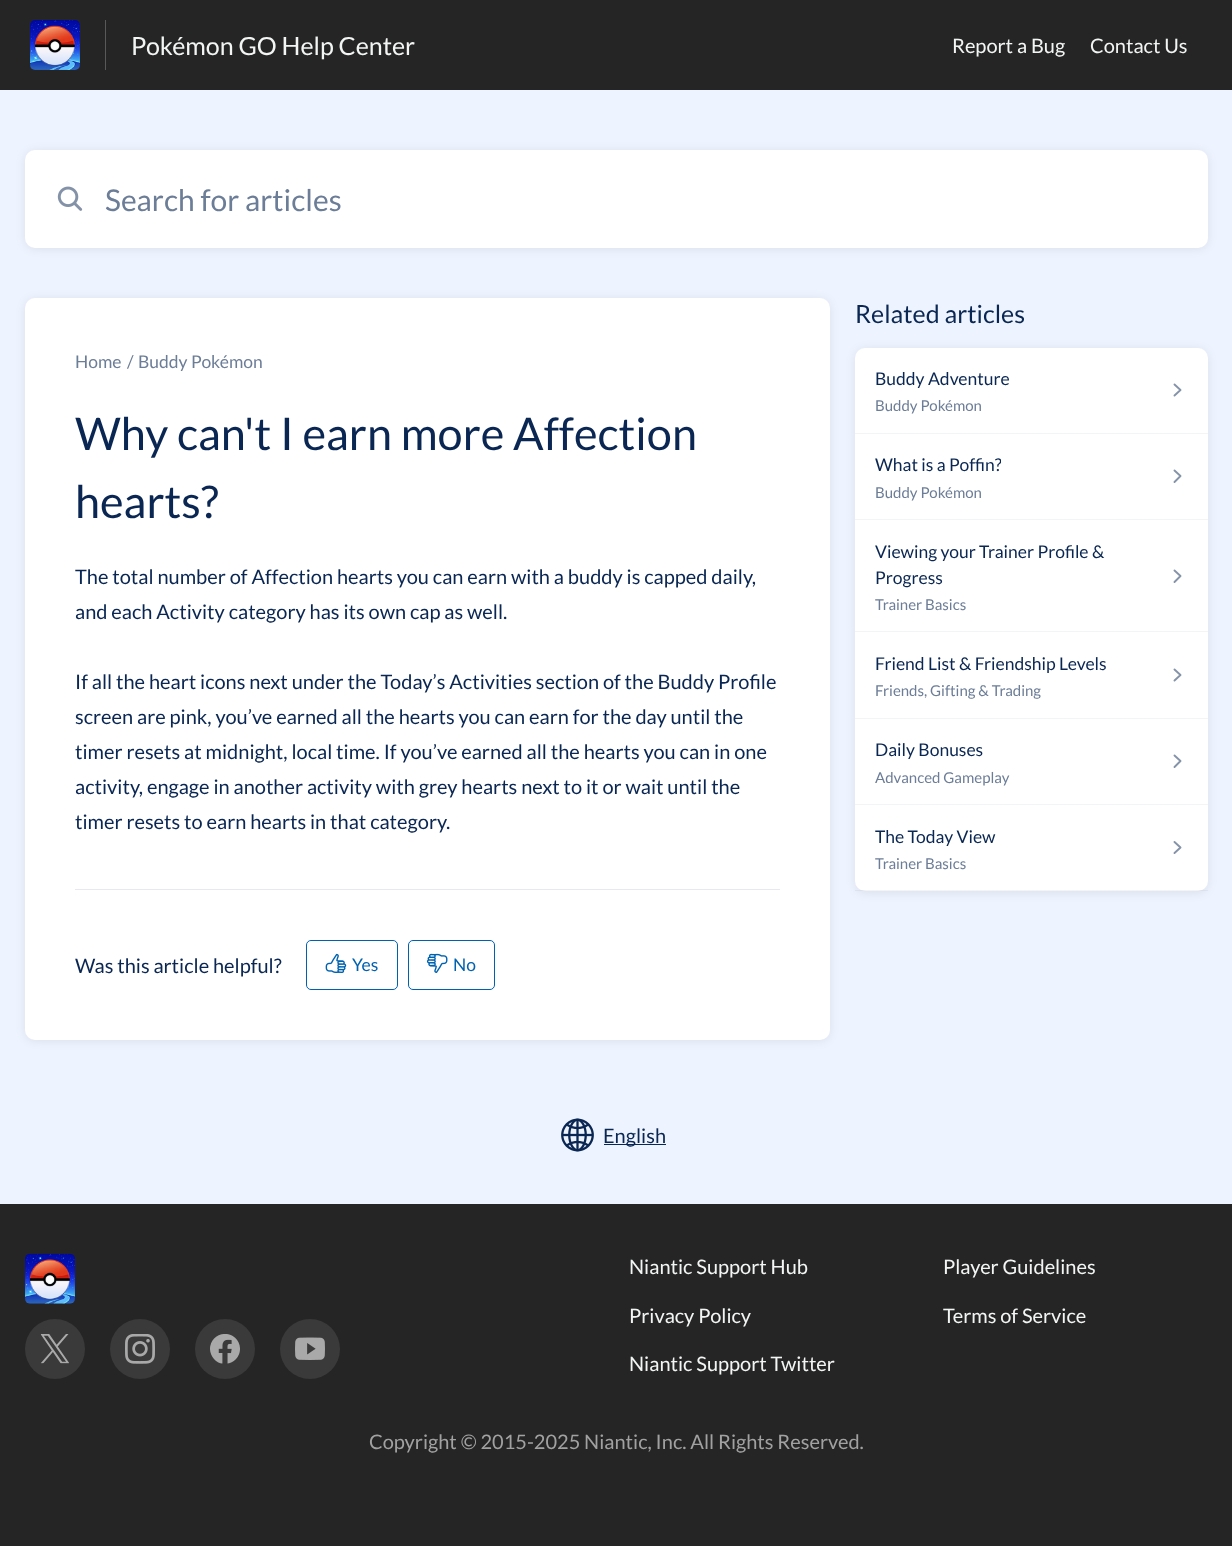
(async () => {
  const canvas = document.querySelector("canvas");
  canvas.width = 1232;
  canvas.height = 1546;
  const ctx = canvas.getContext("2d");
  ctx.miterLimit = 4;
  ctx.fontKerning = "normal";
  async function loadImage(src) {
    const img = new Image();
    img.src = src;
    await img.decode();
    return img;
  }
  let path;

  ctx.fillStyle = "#eef4ff";
  ctx.fillRect(0, 0, 1232, 1546);
  ctx.fillStyle = "#252525";
  ctx.fillRect(0, 0, 1232, 90);
  ctx.fillStyle = "#595959";
  ctx.fillRect(105, 20, 1, 50);
  ctx.drawImage(await loadImage("img/1.png"), 30, 20, 50, 50);
  ctx.fillStyle = "rgba(0, 0, 0, 0.08)";
  ctx.filter = "blur(5px)";
  ctx.beginPath();
  ctx.roundRect(25, 151, 1183, 98, 10);
  ctx.fill();
  ctx.filter = "none";
  ctx.fillStyle = "#ffffff";
  ctx.beginPath();
  ctx.roundRect(25, 150, 1183, 98, 10);
  ctx.fill();
  ctx.drawImage(await loadImage("img/2.png"), 57, 186, 26, 25);
  ctx.fillStyle = "rgba(0, 0, 0, 0.08)";
  ctx.filter = "blur(5px)";
  ctx.beginPath();
  ctx.roundRect(25, 299, 805, 742, 10);
  ctx.fill();
  ctx.filter = "none";
  ctx.fillStyle = "#ffffff";
  ctx.beginPath();
  ctx.roundRect(25, 298, 805, 742, 10);
  ctx.fill();
  ctx.fillStyle = "#e7e9ee";
  ctx.fillRect(75, 889, 705, 1);
  ctx.beginPath();
  ctx.roundRect(306.5, 940.5, 91, 49, 4.5);
  ctx.strokeStyle = "#0061af";
  ctx.stroke();
  ctx.fillStyle = "#ffffff";
  ctx.beginPath();
  ctx.roundRect(308, 941, 88, 48, 5);
  ctx.fill();
  ctx.drawImage(await loadImage("img/3.png"), 325, 953, 22, 20);
  ctx.beginPath();
  ctx.roundRect(408.5, 940.5, 86, 49, 4.5);
  ctx.stroke();
  ctx.drawImage(await loadImage("img/4.png"), 426, 953, 22, 20);
  ctx.fillStyle = "rgba(0, 0, 0, 0.08)";
  ctx.filter = "blur(5px)";
  ctx.beginPath();
  ctx.roundRect(855, 349, 353, 544, 10);
  ctx.fill();
  ctx.filter = "none";
  ctx.fillStyle = "#ffffff";
  ctx.beginPath();
  ctx.roundRect(855, 348, 353, 543, 10);
  ctx.fill();
  ctx.fillStyle = "#f3f4f6";
  ctx.fillRect(855, 433, 353, 1);
  path = new Path2D("M1174.5 384.5L1180.5 390L1174.5 395.5");
  ctx.strokeStyle = "#8593a9";
  ctx.lineWidth = 1.9;
  ctx.lineCap = "round";
  ctx.lineJoin = "round";
  ctx.stroke(path);
  ctx.fillRect(855, 519, 353, 1);
  path = new Path2D("M1174.5 470.5L1180.5 476L1174.5 482");
  ctx.stroke(path);
  ctx.fillRect(855, 631, 353, 1);
  path = new Path2D("M1174.5 570.5L1180.5 576L1174.5 582");
  ctx.stroke(path);
  ctx.fillRect(855, 718, 353, 1);
  path = new Path2D("M1174.5 669.5L1180.5 675L1174.5 680.5");
  ctx.stroke(path);
  ctx.fillRect(855, 804, 353, 1);
  path = new Path2D("M1174.5 755.5L1180.5 761L1174.5 767");
  ctx.stroke(path);
  ctx.fillStyle = "rgba(10, 38, 82, 0.05)";
  ctx.fillRect(855, 890, 353, 1);
  path = new Path2D("M1174.5 842L1180.5 847.5L1174.5 853");
  ctx.stroke(path);
  ctx.drawImage(await loadImage("img/5.png"), 561, 1118, 33, 34);
  ctx.fillStyle = "#0a2652";
  ctx.fillRect(604, 1144, 62, 1);
  ctx.fillStyle = "#252525";
  ctx.fillRect(0, 1204, 1232, 342);
  ctx.drawImage(await loadImage("img/6.png"), 25, 1253, 50, 51);
  ctx.fillStyle = "#3a3a3a";
  ctx.beginPath();
  ctx.arc(55, 1349, 30, 0, Math.PI * 2);
  ctx.fill();
  ctx.drawImage(await loadImage("img/7.png"), 40, 1334, 29, 30);
  ctx.beginPath();
  ctx.arc(140, 1349, 30, 0, Math.PI * 2);
  ctx.fill();
  ctx.drawImage(await loadImage("img/8.png"), 125, 1334, 30, 30);
  ctx.beginPath();
  ctx.arc(225, 1349, 30, 0, Math.PI * 2);
  ctx.fill();
  ctx.drawImage(await loadImage("img/9.png"), 210, 1334, 30, 30);
  ctx.beginPath();
  ctx.arc(310, 1349, 30, 0, Math.PI * 2);
  ctx.fill();
  ctx.drawImage(await loadImage("img/10.png"), 295, 1337, 30, 23);
  ctx.font = "25px Lato";
  ctx.fillStyle = "#f3f4f4";
  ctx.fillText("Pokémon GO Help Center", 131, 55);
  ctx.font = "20px Lato";
  ctx.fillText("Report a Bug", 952, 53);
  ctx.fillText("Contact Us", 1090, 53);
  ctx.font = "30px Lato";
  ctx.fillStyle = "#6c7d97";
  ctx.fillText("Search for articles", 105, 211);
  ctx.font = "17.5px Lato";
  for (const [text, x, y] of [
    ["Home", 75, 368],
    ["/", 127, 368],
    ["Buddy Pokémon", 138, 368],
  ]) {
    ctx.fillText(text, x, y);
  }
  ctx.font = "45px Lato";
  ctx.fillStyle = "#0a2652";
  ctx.fillText("Why can't I earn more Affection", 75, 450);
  ctx.fillText("hearts?", 75, 518);
  ctx.font = "20px Lato";
  for (const [text, x, y] of [
    ["The total number of Affection hearts you can earn with a buddy is capped daily,", 75, 584],
    ["and each Activity category has its own cap as well.", 75, 619],
    ["If all the heart icons next under the Today’s Activities section of the Buddy Profile", 75, 689],
    ["screen are pink, you’ve earned all the hearts you can earn for the day until the", 75, 724],
    ["timer resets at midnight, local time. If you’ve earned all the hearts you can in one", 75, 759],
    ["activity, engage in another activity with grey hearts next to it or wait until the", 75, 794],
    ["timer resets to earn hearts in that category.", 75, 829],
    ["Was this article helpful?", 75, 973],
  ]) {
    ctx.fillText(text, x, y);
  }
  ctx.font = "17.5px Lato";
  ctx.fillStyle = "#0061af";
  ctx.fillText("Yes", 352, 971);
  ctx.fillText("No", 453, 971);
  ctx.font = "25px Lato";
  ctx.fillStyle = "#0a2652";
  ctx.fillText("Related articles", 855, 323);
  ctx.font = "17.5px Lato";
  ctx.fillText("Buddy Adventure", 875, 385);
  ctx.font = "15px Lato";
  ctx.fillStyle = "#6c7d97";
  ctx.fillText("Buddy Pokémon", 875, 411);
  ctx.save();
  ctx.beginPath();
  ctx.rect(875, 451, 126, 32);
  ctx.clip();
  ctx.font = "17.5px Lato";
  ctx.fillStyle = "#0a2652";
  ctx.fillText("What is a Poffin?", 875, 471);
  ctx.restore();
  ctx.fillText("Buddy Pokémon", 875, 498);
  ctx.font = "17.5px Lato";
  ctx.fillStyle = "#0a2652";
  ctx.fillText("Viewing your Trainer Profile &", 875, 558);
  ctx.fillText("Progress", 875, 584);
  ctx.font = "15px Lato";
  ctx.fillStyle = "#6c7d97";
  ctx.fillText("Trainer Basics", 875, 610);
  ctx.font = "17.5px Lato";
  ctx.fillStyle = "#0a2652";
  ctx.fillText("Friend List & Friendship Levels", 875, 670);
  ctx.font = "15px Lato";
  ctx.fillStyle = "#6c7d97";
  ctx.fillText("Friends, Gifting & Trading", 875, 696);
  ctx.font = "17.5px Lato";
  ctx.fillStyle = "#0a2652";
  ctx.fillText("Daily Bonuses", 875, 756);
  ctx.font = "15px Lato";
  ctx.fillStyle = "#6c7d97";
  ctx.fillText("Advanced Gameplay", 875, 783);
  ctx.font = "17.5px Lato";
  ctx.fillStyle = "#0a2652";
  ctx.fillText("The Today View", 875, 843);
  ctx.font = "15px Lato";
  ctx.fillStyle = "#6c7d97";
  ctx.fillText("Trainer Basics", 875, 869);
  ctx.font = "20px Lato";
  ctx.fillStyle = "#0a2652";
  ctx.fillText("English", 603, 1143);
  ctx.fillStyle = "#f3f4f4";
  for (const [text, x, y] of [
    ["Niantic Support Hub", 629, 1274],
    ["Player Guidelines", 943, 1274],
    ["Privacy Policy", 629, 1323],
    ["Terms of Service", 943, 1323],
    ["Niantic Support Twitter", 629, 1371],
  ]) {
    ctx.fillText(text, x, y);
  }
  ctx.fillStyle = "#a1a1a1";
  ctx.fillText("Copyright © 2015-2025 Niantic, Inc. All Rights Reserved.", 369, 1449);
})();
